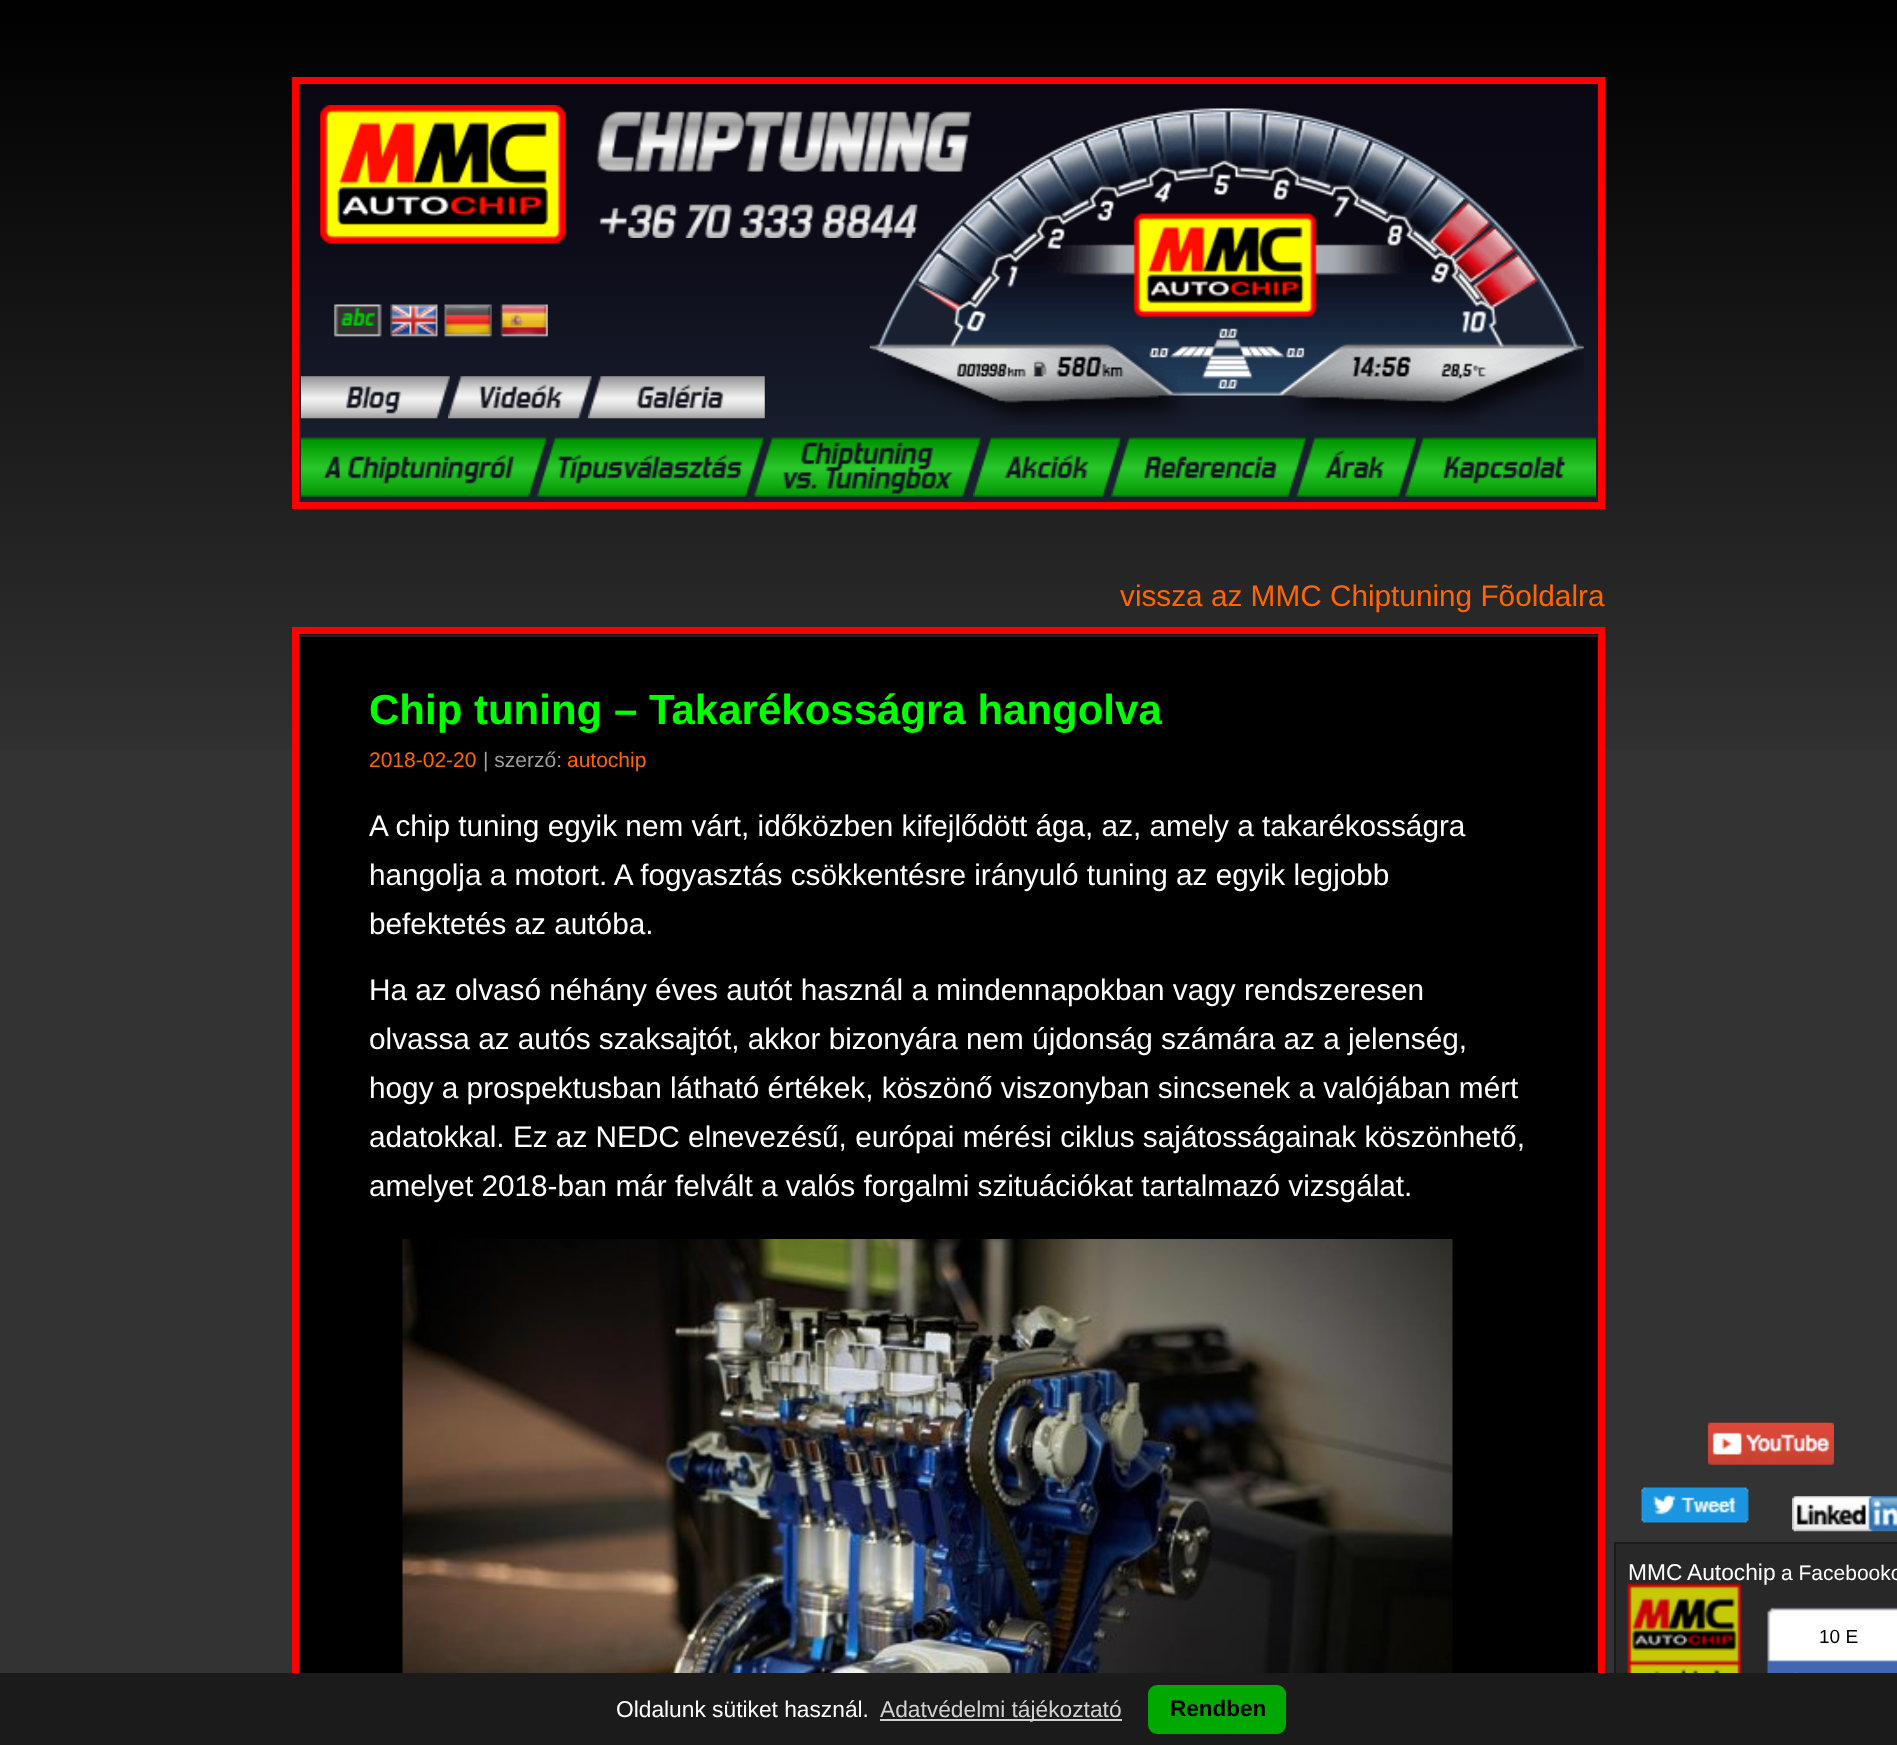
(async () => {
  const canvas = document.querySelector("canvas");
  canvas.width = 1897;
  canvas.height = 1745;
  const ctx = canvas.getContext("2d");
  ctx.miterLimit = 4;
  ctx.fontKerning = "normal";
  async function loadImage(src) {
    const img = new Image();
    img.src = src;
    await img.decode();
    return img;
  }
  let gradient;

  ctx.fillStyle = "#333333";
  ctx.fillRect(0, 0, 1897, 1745);
  gradient = ctx.createLinearGradient(949, 0, 949, 788);
  gradient.addColorStop(0, "#000000");
  gradient.addColorStop(1, "#333333");
  ctx.fillStyle = gradient;
  ctx.fillRect(0, 0, 1897, 749);
  gradient = ctx.createLinearGradient(949, 502, 949, 84);
  gradient.addColorStop(0.1, "#19202f");
  gradient.addColorStop(0.65, "#0c0b17");
  gradient.addColorStop(1, "#0a0813");
  ctx.fillStyle = gradient;
  ctx.fillRect(299, 84, 1299, 418);
  ctx.strokeStyle = "#ff0000";
  ctx.lineWidth = 7;
  ctx.strokeRect(295.5, 80.5, 1306, 425);
  ctx.drawImage(await loadImage("img/1.png"), 320, 105, 246, 139);
  ctx.drawImage(await loadImage("img/2.png"), 596, 111, 376, 127);
  ctx.drawImage(await loadImage("img/3.png"), 869, 108, 715, 317);
  ctx.drawImage(await loadImage("img/4.png"), 334, 304, 48, 34);
  ctx.drawImage(await loadImage("img/5.png"), 390, 304, 48, 34);
  ctx.drawImage(await loadImage("img/6.png"), 444, 304, 48, 34);
  ctx.drawImage(await loadImage("img/7.png"), 500, 304, 48, 34);
  ctx.drawImage(await loadImage("img/8.png"), 301, 376, 149, 43);
  ctx.drawImage(await loadImage("img/9.png"), 448, 376, 144, 43);
  ctx.drawImage(await loadImage("img/10.png"), 588, 376, 177, 43);
  ctx.drawImage(await loadImage("img/11.png"), 301, 437, 247, 60);
  ctx.drawImage(await loadImage("img/12.png"), 537, 437, 228, 60);
  ctx.drawImage(await loadImage("img/13.png"), 754, 437, 228, 60);
  ctx.drawImage(await loadImage("img/14.png"), 973, 437, 149, 60);
  ctx.drawImage(await loadImage("img/15.png"), 1111, 437, 196, 60);
  ctx.drawImage(await loadImage("img/16.png"), 1296, 437, 120, 60);
  ctx.drawImage(await loadImage("img/17.png"), 1405, 437, 191, 60);
  ctx.fillStyle = "#000000";
  ctx.fillRect(299, 634, 1299, 1039);
  ctx.strokeRect(295.5, 630.5, 1306, 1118);
  ctx.fillStyle = "#222222";
  ctx.fillRect(299, 635, 1299, 2);
  ctx.drawImage(await loadImage("img/18.png"), 402, 1239, 1051, 434);
  ctx.drawImage(await loadImage("img/19.png"), 1708, 1422, 126, 43);
  ctx.drawImage(await loadImage("img/20.png"), 1641, 1487, 108, 36);
  ctx.drawImage(await loadImage("img/21.png"), 1792, 1496, 105, 36);
  ctx.fillStyle = "#282828";
  ctx.fillRect(1616, 1544, 281, 129);
  ctx.drawImage(await loadImage("img/22.png"), 1627, 1583, 115, 90);
  ctx.strokeStyle = "#1b1b1b";
  ctx.lineWidth = 2;
  ctx.strokeRect(1615, 1543, 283, 173);
  ctx.drawImage(await loadImage("img/23.png"), 1767, 1607, 130, 66);
  ctx.fillStyle = "#1b1b1b";
  ctx.fillRect(0, 1673, 1897, 72);
  ctx.fillStyle = "#d1d1d1";
  ctx.fillRect(880, 1719, 242, 2);
  ctx.fillStyle = "#00a800";
  ctx.beginPath();
  ctx.roundRect(1148, 1685, 138, 49, 9);
  ctx.fill();
  ctx.font = "29.75px Liberation Sans";
  ctx.fillStyle = "#ff6600";
  ctx.fillText("vissza az MMC Chiptuning Fõoldalra", 1120, 606);
  ctx.font = "bold 42px Liberation Sans";
  ctx.fillStyle = "#00ff00";
  ctx.fillText("Chip tuning – Takarékosságra hangolva", 369, 724);
  ctx.font = "21px Liberation Sans";
  ctx.fillStyle = "#ff6600";
  ctx.fillText("2018-02-20", 369, 767);
  ctx.fillStyle = "#9f9f9f";
  ctx.fillText("| szerző:", 483, 767);
  ctx.fillStyle = "#ff6600";
  ctx.fillText("autochip", 567, 767);
  ctx.font = "29.75px Liberation Sans";
  ctx.fillStyle = "#fefefe";
  for (const [text, x, y] of [
    ["A chip tuning egyik nem várt, időközben kifejlődött ága, az, amely a takarékosságra", 369, 836],
    ["hangolja a motort. A fogyasztás csökkentésre irányuló tuning az egyik legjobb", 369, 885],
    ["befektetés az autóba.", 369, 934],
    ["Ha az olvasó néhány éves autót használ a mindennapokban vagy rendszeresen", 369, 1000],
    ["olvassa az autós szaksajtót, akkor bizonyára nem újdonság számára az a jelenség,", 369, 1049],
    ["hogy a prospektusban látható értékek, köszönő viszonyban sincsenek a valójában mért", 369, 1098],
    ["adatokkal. Ez az NEDC elnevezésű, európai mérési ciklus sajátosságainak köszönhető,", 369, 1147],
    ["amelyet 2018-ban már felvált a valós forgalmi szituációkat tartalmazó vizsgálat.", 369, 1196],
  ]) {
    ctx.fillText(text, x, y);
  }
  ctx.font = "22.75px Liberation Sans";
  ctx.fillText("MMC", 1628, 1580);
  ctx.fillText("Autochip", 1687, 1580);
  ctx.font = "21px Liberation Sans";
  ctx.fillText("a Facebooko", 1781, 1580);
  ctx.font = "19px Liberation Sans";
  ctx.fillStyle = "#000000";
  ctx.fillText("10 E", 1819, 1643);
  ctx.font = "22.75px Liberation Sans";
  ctx.fillStyle = "#fefefe";
  ctx.fillText("Oldalunk sütiket használ.", 616, 1717);
  ctx.fillStyle = "#d1d1d1";
  ctx.fillText("Adatvédelmi tájékoztató", 880, 1717);
  ctx.font = "bold 22.5px Liberation Sans";
  ctx.fillStyle = "#000000";
  ctx.fillText("Rendben", 1170, 1716);
})();
